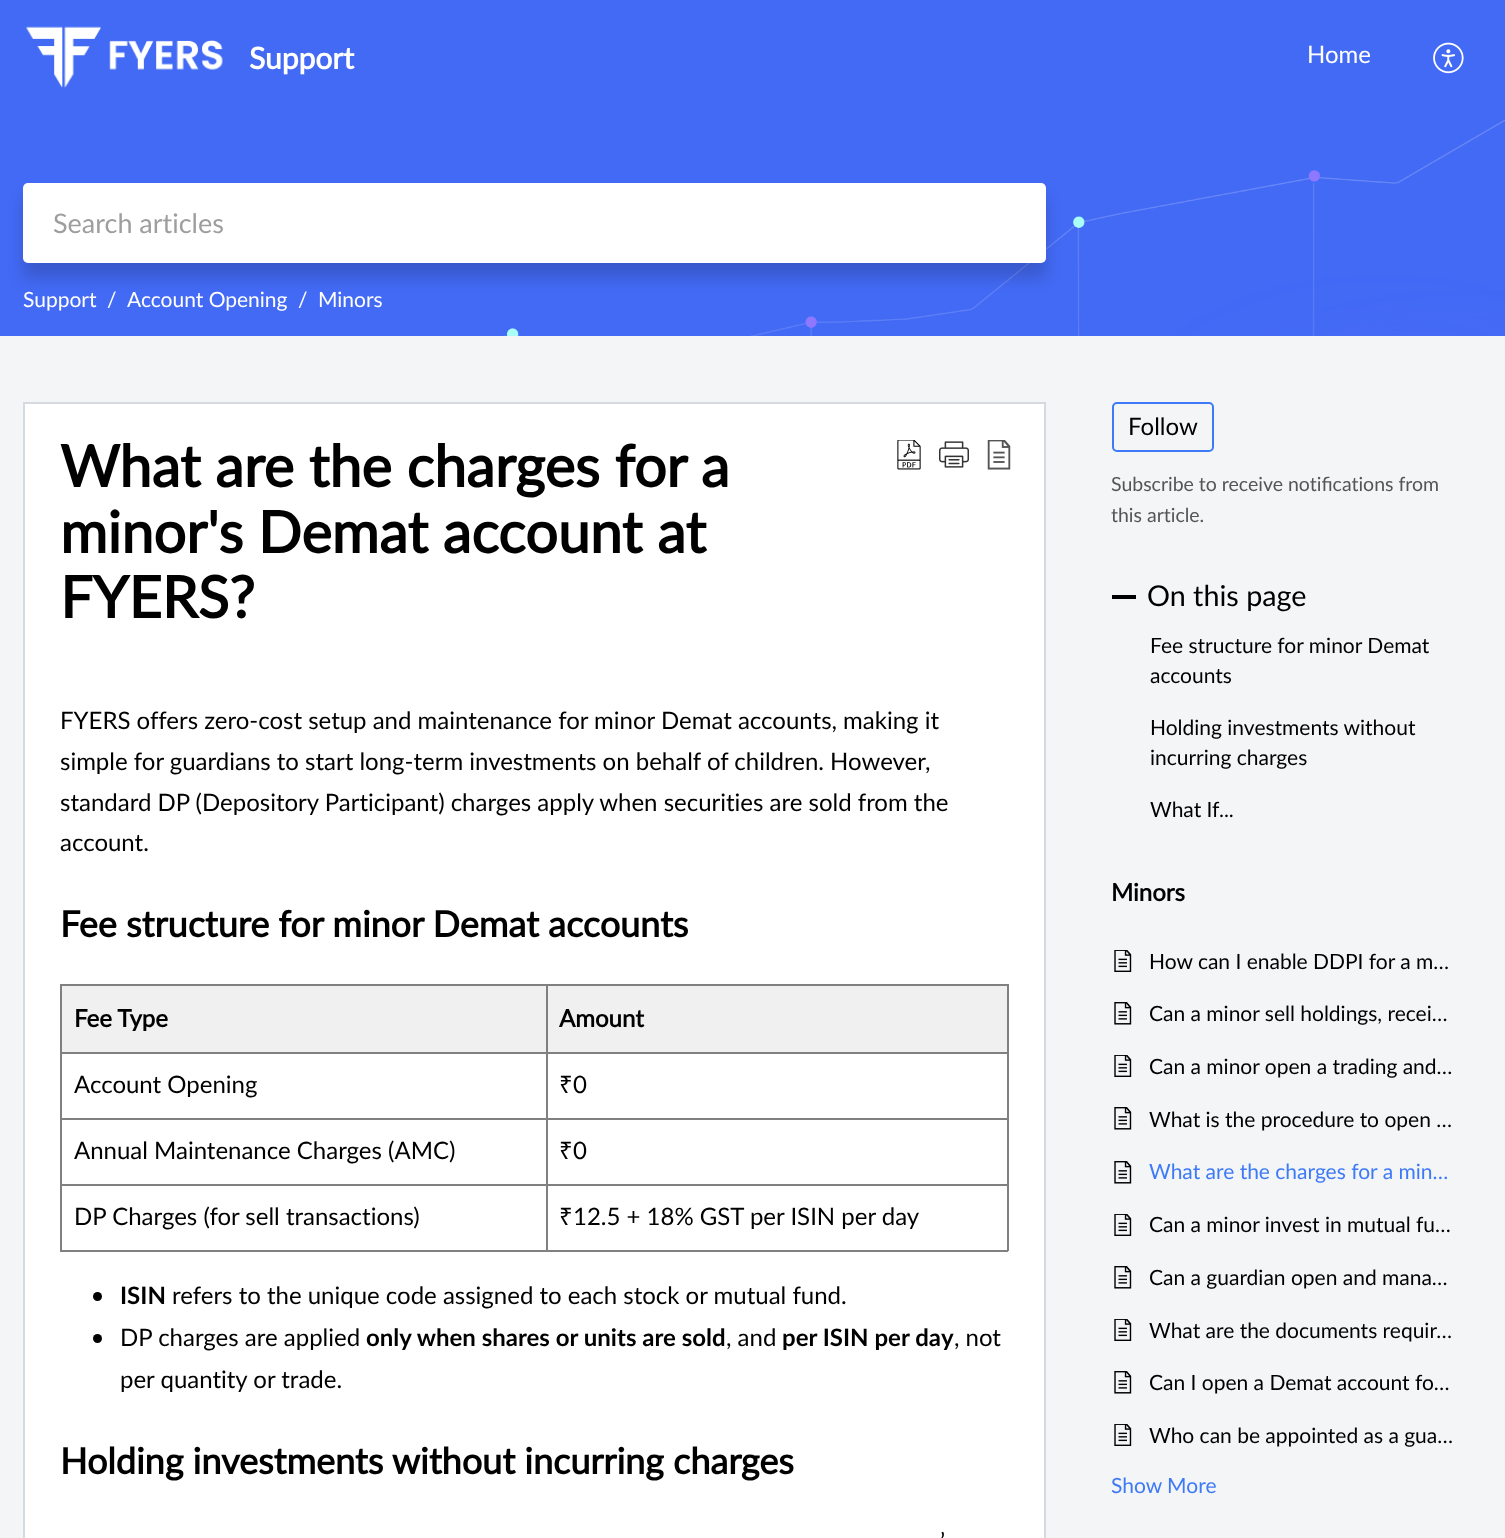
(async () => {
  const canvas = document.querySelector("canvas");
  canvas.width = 1505;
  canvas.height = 1538;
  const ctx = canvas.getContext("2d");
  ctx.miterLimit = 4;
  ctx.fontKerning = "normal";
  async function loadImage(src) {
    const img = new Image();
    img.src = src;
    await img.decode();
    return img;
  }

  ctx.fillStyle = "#f3f5f7";
  ctx.fillRect(0, 0, 1505, 1538);
  ctx.drawImage(await loadImage("img/1.png"), 0, 0, 1505, 336);
  ctx.drawImage(await loadImage("img/2.png"), 25, 26, 198, 62);
  ctx.drawImage(await loadImage("img/3.png"), 1433, 42, 31, 32);
  ctx.fillStyle = "rgba(0, 0, 0, 0.16)";
  ctx.filter = "blur(7.5px)";
  ctx.beginPath();
  ctx.rect(23, 198, 1023, 80);
  ctx.fill();
  ctx.filter = "none";
  ctx.fillStyle = "#ffffff";
  ctx.beginPath();
  ctx.roundRect(23, 183, 1023, 80, 5);
  ctx.fill();
  ctx.beginPath();
  ctx.rect(24, 403, 1021, 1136);
  ctx.fill();
  ctx.strokeStyle = "#d4dadf";
  ctx.lineWidth = 2;
  ctx.stroke();
  ctx.drawImage(await loadImage("img/4.png"), 897, 440, 24, 30);
  ctx.drawImage(await loadImage("img/5.png"), 939, 441, 30, 27);
  ctx.drawImage(await loadImage("img/6.png"), 987, 440, 24, 30);
  for (const [x, y, w, h, color] of [
    [60, 984, 948, 2, "#808080"],
    [1007, 984, 2, 267, "#808080"],
    [60, 1250, 948, 2, "#808080"],
    [60, 984, 2, 267, "#808080"],
    [62, 986, 945, 66, "#f0f0f0"],
    [546, 1052, 462, 2, "#808080"],
    [546, 1118, 462, 2, "#808080"],
    [546, 1184, 462, 2, "#808080"],
    [546, 1184, 2, 67, "#808080"],
    [60, 1184, 488, 2, "#808080"],
    [546, 1118, 2, 67, "#808080"],
    [60, 1118, 488, 2, "#808080"],
    [546, 1052, 2, 67, "#808080"],
    [60, 1052, 488, 2, "#808080"],
    [546, 984, 2, 69, "#808080"],
  ]) {
    ctx.fillStyle = color;
    ctx.fillRect(x, y, w, h);
  }
  ctx.fillStyle = "#000000";
  ctx.beginPath();
  ctx.arc(97.5, 1296.5, 4.5, 0, Math.PI * 2);
  ctx.fill();
  ctx.beginPath();
  ctx.arc(97.5, 1338.5, 4.5, 0, Math.PI * 2);
  ctx.fill();
  ctx.beginPath();
  ctx.roundRect(1113, 403, 100, 48, 4);
  ctx.strokeStyle = "#3e7af7";
  ctx.stroke();
  ctx.fillRect(1112, 595, 24, 4);
  ctx.drawImage(await loadImage("img/7.png"), 1114, 950, 18, 22);
  ctx.drawImage(await loadImage("img/8.png"), 1114, 1002, 18, 23);
  ctx.drawImage(await loadImage("img/7.png"), 1114, 1055, 18, 22);
  ctx.drawImage(await loadImage("img/8.png"), 1114, 1107, 18, 23);
  ctx.drawImage(await loadImage("img/8.png"), 1114, 1161, 18, 23);
  ctx.drawImage(await loadImage("img/7.png"), 1114, 1214, 18, 22);
  ctx.drawImage(await loadImage("img/8.png"), 1114, 1266, 18, 23);
  ctx.drawImage(await loadImage("img/7.png"), 1114, 1319, 18, 22);
  ctx.drawImage(await loadImage("img/8.png"), 1114, 1371, 18, 23);
  ctx.drawImage(await loadImage("img/7.png"), 1114, 1424, 18, 22);
  ctx.font = "bold 30px Lato";
  ctx.fillStyle = "#ffffff";
  ctx.fillText("Support", 249, 69);
  ctx.font = "24px Lato";
  ctx.fillText("Home", 1307, 63);
  ctx.font = "27px Lato";
  ctx.fillStyle = "#9e9e9e";
  ctx.fillText("Search articles", 53, 233);
  ctx.font = "21px Lato";
  ctx.fillStyle = "#ffffff";
  for (const [text, x, y] of [
    ["Support", 23, 307],
    ["/", 107, 307],
    ["Account Opening", 127, 307],
    ["/", 298, 307],
    ["Minors", 318, 307],
  ]) {
    ctx.fillText(text, x, y);
  }
  ctx.font = "bold 57.6px Lato";
  ctx.fillStyle = "#000000";
  for (const [text, x, y] of [
    ["What are the charges for a", 60, 487],
    ["minor's Demat account at", 60, 553],
    ["FYERS?", 60, 618],
  ]) {
    ctx.fillText(text, x, y);
  }
  ctx.font = "24px Lato";
  for (const [text, x, y] of [
    ["FYERS offers zero-cost setup and maintenance for minor Demat accounts, making it", 60, 729],
    ["simple for guardians to start long-term investments on behalf of children. However,", 60, 770],
    ["standard DP (Depository Participant) charges apply when securities are sold from the", 60, 811],
    ["account.", 60, 851],
  ]) {
    ctx.fillText(text, x, y);
  }
  ctx.font = "bold 36px Lato";
  ctx.fillText("Fee structure for minor Demat accounts", 60, 937);
  ctx.font = "bold 24px Lato";
  ctx.fillText("Fee Type", 74, 1027);
  ctx.fillText("Amount", 559, 1027);
  ctx.font = "24px Lato";
  ctx.fillText("Account Opening", 74, 1093);
  ctx.font = "24px Noto Sans";
  ctx.fillText("₹", 559, 1093);
  ctx.font = "24px Lato";
  ctx.fillText("0", 573, 1093);
  ctx.fillText("Annual Maintenance Charges (AMC)", 74, 1159);
  ctx.font = "24px Noto Sans";
  ctx.fillText("₹", 559, 1159);
  ctx.font = "24px Lato";
  ctx.fillText("0", 573, 1159);
  ctx.fillText("DP Charges (for sell transactions)", 74, 1225);
  ctx.font = "24px Noto Sans";
  ctx.fillText("₹", 559, 1225);
  ctx.font = "24px Lato";
  ctx.fillText("12.5 + 18% GST per ISIN per day", 573, 1225);
  ctx.font = "bold 24px 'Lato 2'";
  ctx.fillText("ISIN", 120, 1304);
  ctx.font = "24px Lato";
  ctx.fillText("refers to the unique code assigned to each stock or mutual fund.", 172, 1304);
  ctx.fillText("DP charges are applied", 120, 1346);
  ctx.font = "bold 24px 'Lato 2'";
  ctx.fillText("only when shares or units are sold", 366, 1346);
  ctx.font = "24px Lato";
  ctx.fillText(", and", 726, 1346);
  ctx.font = "bold 24px 'Lato 2'";
  ctx.fillText("per ISIN per day", 782, 1346);
  ctx.font = "24px Lato";
  ctx.fillText(", not", 954, 1346);
  ctx.fillText("per quantity or trade.", 120, 1388);
  ctx.font = "bold 36px Lato";
  ctx.fillText("Holding investments without incurring charges", 60, 1474);
  ctx.font = "24px Lato";
  ctx.fillText("’", 940, 1550);
  ctx.fillText("Follow", 1128, 435);
  ctx.font = "19.5px Lato";
  ctx.fillStyle = "#555555";
  ctx.fillText("Subscribe to receive notifications from", 1111, 491);
  ctx.fillText("this article.", 1111, 522);
  ctx.font = "28.75px Lato";
  ctx.fillStyle = "#000000";
  ctx.fillText("On this page", 1147, 606);
  ctx.font = "21px Lato";
  for (const [text, x, y] of [
    ["Fee structure for minor Demat", 1150, 653],
    ["accounts", 1150, 683],
    ["Holding investments without", 1150, 735],
    ["incurring charges", 1150, 765],
    ["What If...", 1150, 817],
  ]) {
    ctx.fillText(text, x, y);
  }
  ctx.font = "bold 24px Lato";
  ctx.fillText("Minors", 1111, 901);
  ctx.font = "21px Lato";
  for (const [text, x, y] of [
    ["How can I enable DDPI for a m…", 1149, 969],
    ["Can a minor sell holdings, recei…", 1149, 1021],
    ["Can a minor open a trading and…", 1149, 1074],
    ["What is the procedure to open …", 1149, 1127],
  ]) {
    ctx.fillText(text, x, y);
  }
  ctx.fillStyle = "#3e7af7";
  ctx.fillText("What are the charges for a min…", 1149, 1179);
  ctx.fillStyle = "#000000";
  for (const [text, x, y] of [
    ["Can a minor invest in mutual fu…", 1149, 1232],
    ["Can a guardian open and mana…", 1149, 1285],
    ["What are the documents requir…", 1149, 1338],
    ["Can I open a Demat account fo…", 1149, 1390],
    ["Who can be appointed as a gua…", 1149, 1443],
  ]) {
    ctx.fillText(text, x, y);
  }
  ctx.fillStyle = "#3e7af7";
  ctx.fillText("Show More", 1111, 1493);
})();
